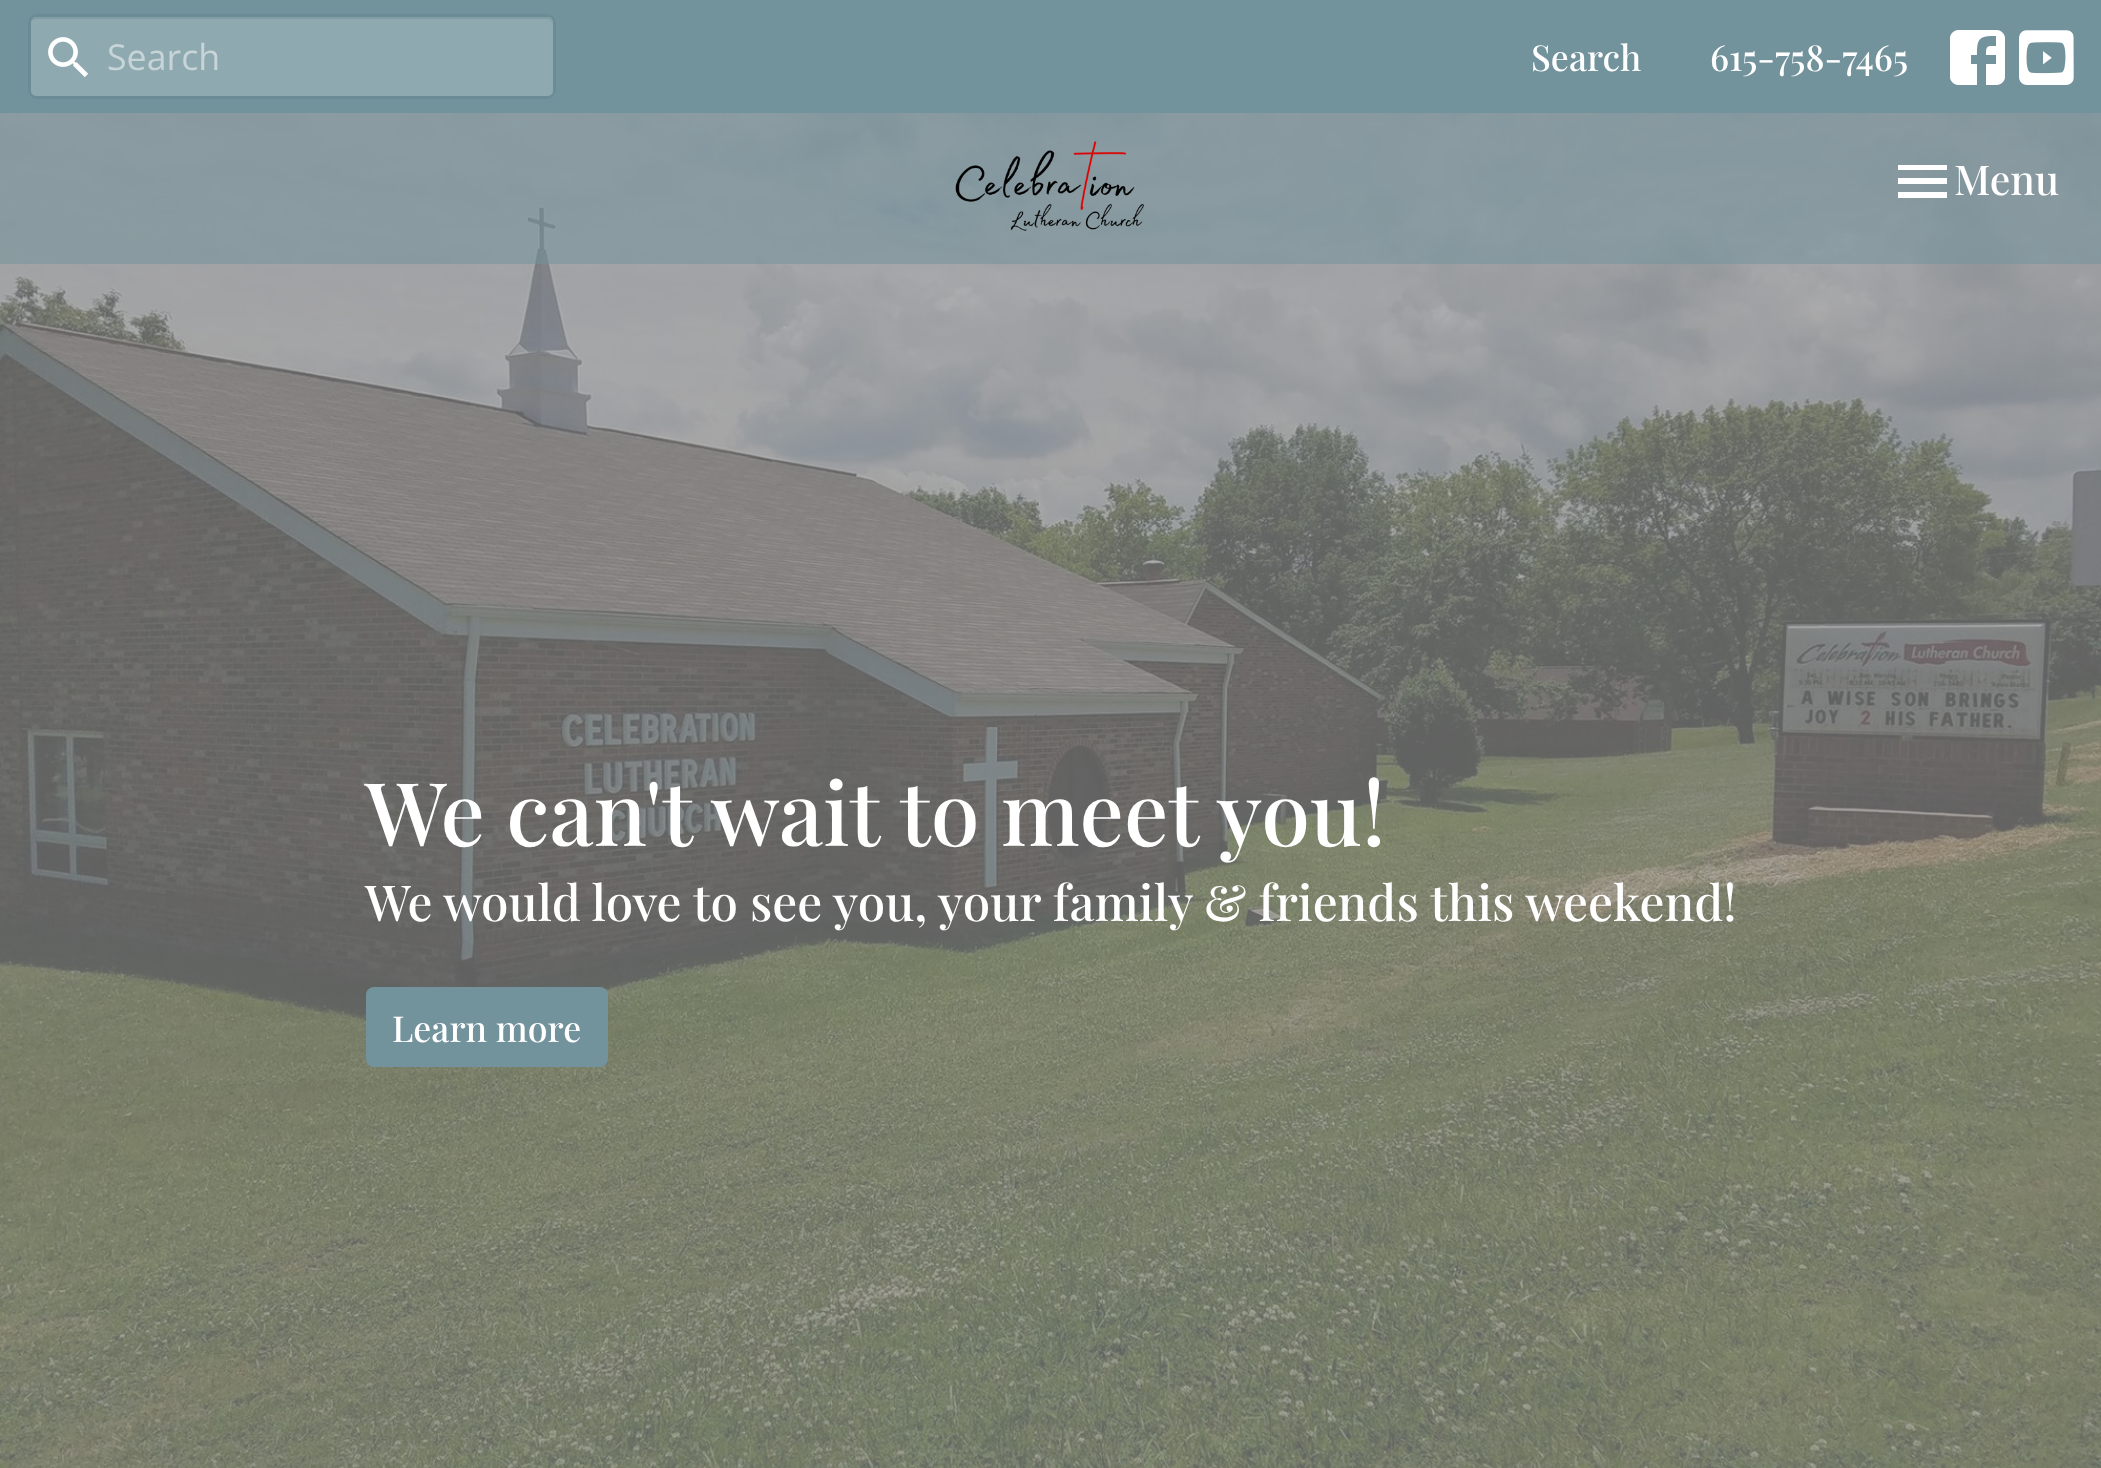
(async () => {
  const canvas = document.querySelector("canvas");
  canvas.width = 2101;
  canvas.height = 1468;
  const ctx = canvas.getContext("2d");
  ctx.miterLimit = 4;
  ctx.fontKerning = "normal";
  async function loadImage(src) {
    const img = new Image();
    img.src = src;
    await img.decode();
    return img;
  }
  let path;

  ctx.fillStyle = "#ffffff";
  ctx.fillRect(0, 0, 2101, 1468);
  ctx.fillStyle = "#73939c";
  ctx.fillRect(0, 0, 2101, 113);
  ctx.fillStyle = "#8fa9b0";
  ctx.beginPath();
  ctx.roundRect(28, 14, 528, 85, 8);
  ctx.fill();
  ctx.fillStyle = "#849ca3";
  path = new Path2D("M36 19H547C550 19 553 22 553 25V23C553 20 550 17 547 17H36C33 17 30 20 30 23V25C30 22 33 19 36 19Z");
  ctx.fill(path);
  ctx.beginPath();
  ctx.roundRect(29.5, 15.5, 525, 82, 6.5);
  ctx.strokeStyle = "#6a8c96";
  ctx.lineWidth = 3;
  ctx.stroke();
  ctx.drawImage(await loadImage("img/1.png"), 48, 37, 41, 41);
  ctx.fillStyle = "#ffffff";
  path = new Path2D("M1996 36V46C1987 46 1986 45 1986 55H1996V64H1986V85H1997C2001 85 2005 81 2005 77V38C2005 34 2001 30 1997 30H1958C1954 30 1950 34 1950 38V77C1950 81 1954 85 1958 85H1977V64H1971V55H1977C1977 38 1979 36 1996 36Z");
  ctx.fill(path);
  ctx.drawImage(await loadImage("img/2.png"), 2019, 30, 55, 55);
  ctx.drawImage(await loadImage("img/4.png"), 0, 113, 2101, 1355);
  ctx.fillStyle = "rgba(115, 147, 156, 0.53)";
  ctx.fillRect(0, 113, 2101, 151);
  ctx.drawImage(await loadImage("img/3.png"), 955, 141, 189, 90);
  ctx.fillStyle = "#ffffff";
  path = new Path2D("M1898 198H1947V192H1898ZM1898 184H1947V178H1898ZM1898 165V170H1947V165Z");
  ctx.fill(path);
  ctx.fillStyle = "#73939c";
  ctx.beginPath();
  ctx.roundRect(366, 987, 242, 80, 8);
  ctx.fill();
  ctx.font = "35.75px Open Sans";
  ctx.fillStyle = "#c7d4d8";
  ctx.fillText("Search", 107, 70);
  ctx.font = "500 35.75px Playfair Display";
  ctx.fillStyle = "#ffffff";
  ctx.fillText("Search", 1531, 71);
  ctx.fillText("615-758-7465", 1710, 71);
  ctx.font = "500 41px Playfair Display";
  ctx.fillText("Menu", 1954, 195);
  ctx.font = "500 88px Playfair Display";
  ctx.fillText("We can't wait to meet you!", 365, 846);
  ctx.font = "500 49.5px Playfair Display";
  ctx.fillText("We would love to see you, your family & friends this weekend!", 365, 921);
  ctx.font = "500 35.75px Playfair Display";
  ctx.fillText("Learn more", 392, 1042);
})();
